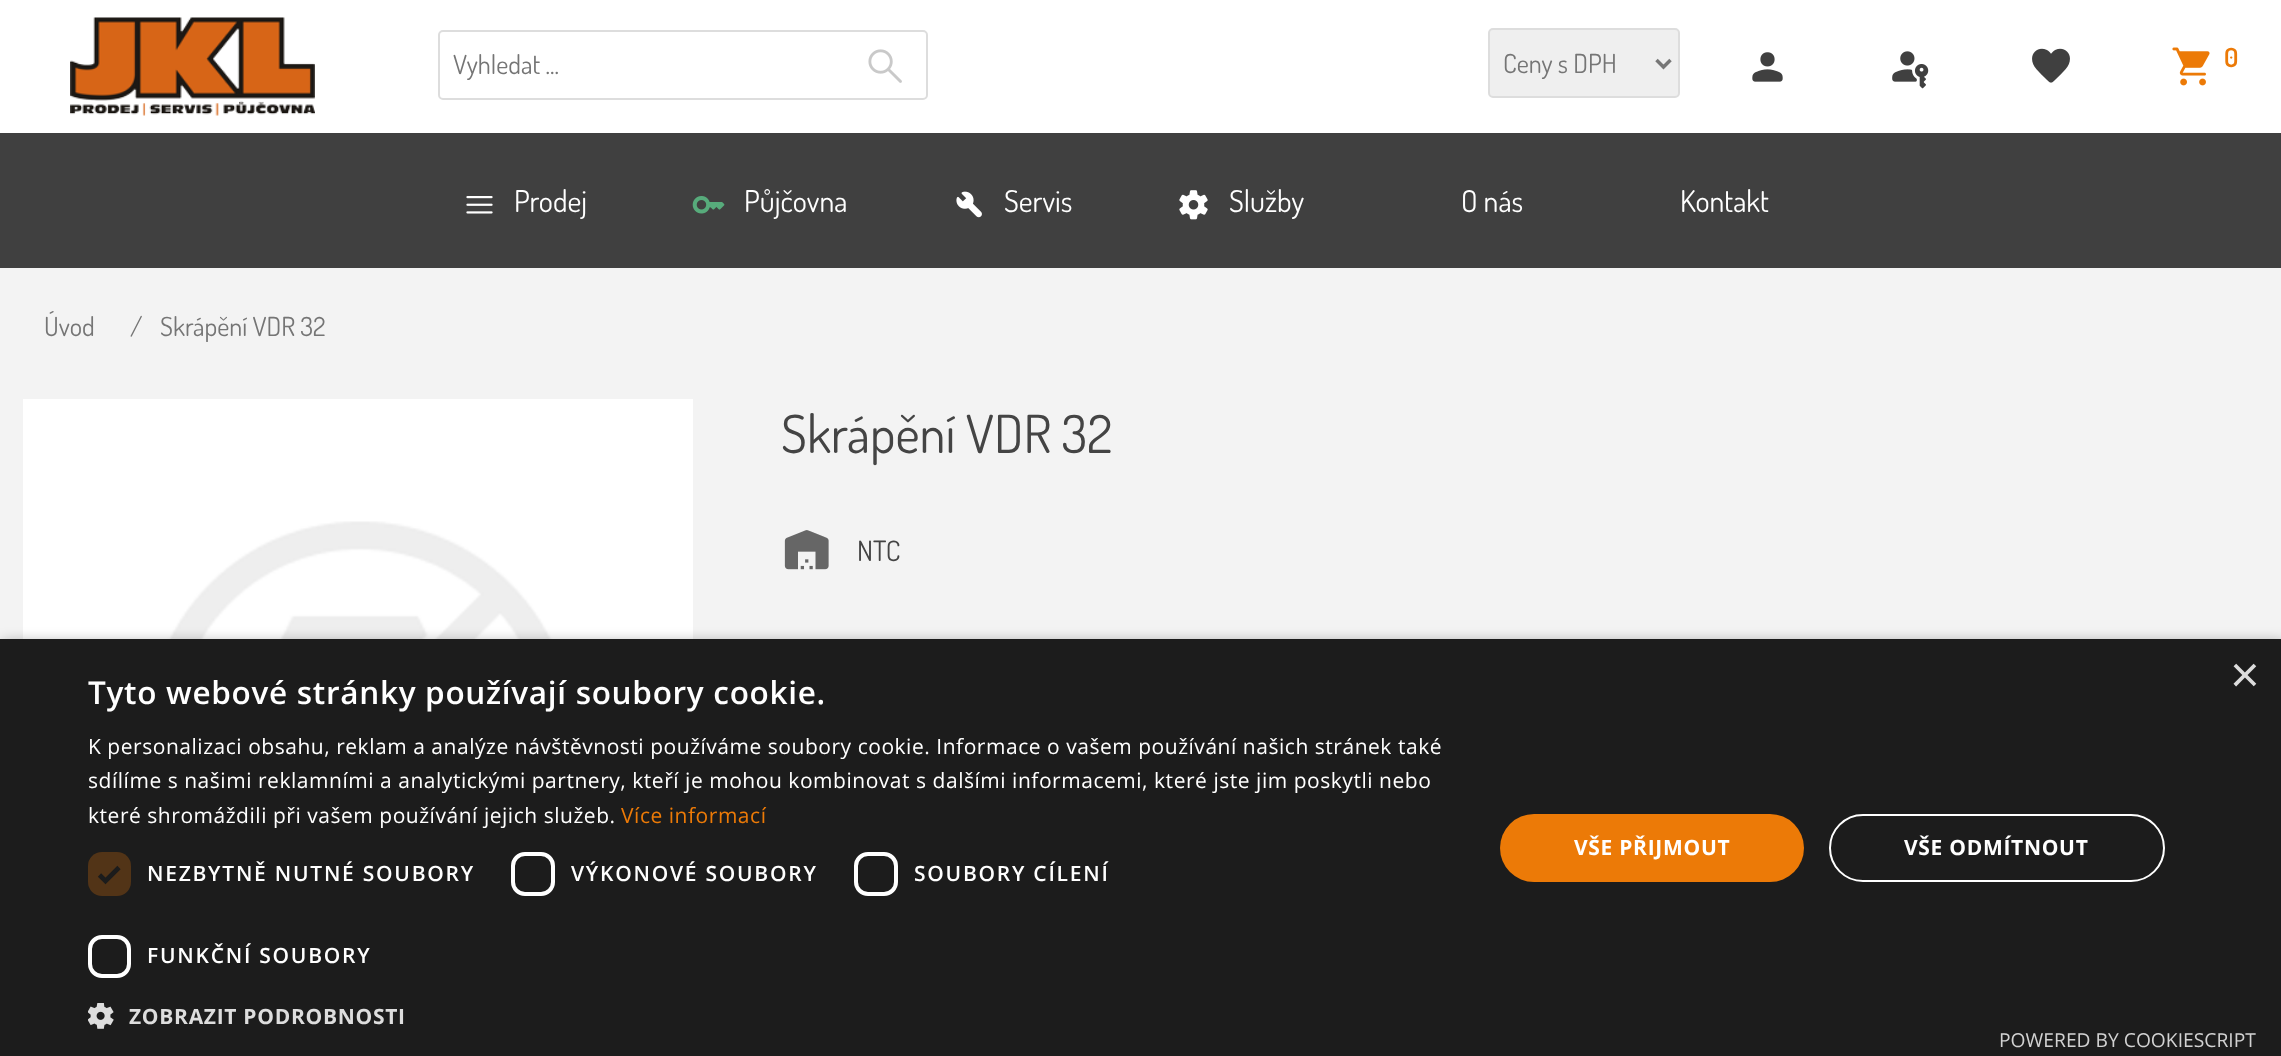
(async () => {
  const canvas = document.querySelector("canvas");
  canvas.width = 2281;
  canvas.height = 1056;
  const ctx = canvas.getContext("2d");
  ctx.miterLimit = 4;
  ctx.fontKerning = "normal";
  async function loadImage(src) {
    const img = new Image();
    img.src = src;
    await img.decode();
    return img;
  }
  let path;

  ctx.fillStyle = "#ffffff";
  ctx.fillRect(0, 0, 2281, 1056);
  ctx.drawImage(await loadImage("img/1.png"), 70, 17, 245, 99);
  ctx.beginPath();
  ctx.roundRect(439, 31, 488, 68, 4);
  ctx.strokeStyle = "#dddddd";
  ctx.lineWidth = 2;
  ctx.stroke();
  ctx.drawImage(await loadImage("img/2.png"), 868, 49, 34, 34);
  ctx.fillStyle = "#efefef";
  ctx.beginPath();
  ctx.roundRect(1489, 29, 190, 68, 4);
  ctx.fill();
  ctx.stroke();
  path = new Path2D("M1656.5 60L1663.5 67L1670.5 60");
  ctx.strokeStyle = "#777777";
  ctx.lineWidth = 3.5;
  ctx.stroke(path);
  ctx.drawImage(await loadImage("img/3.png"), 1752, 52, 31, 30);
  ctx.drawImage(await loadImage("img/4.png"), 1892, 51, 37, 38);
  ctx.drawImage(await loadImage("img/5.png"), 2032, 48, 38, 35);
  ctx.drawImage(await loadImage("img/6.png"), 2172, 47, 38, 39);
  ctx.fillStyle = "#f3f3f3";
  ctx.fillRect(0, 268, 2281, 371);
  ctx.fillStyle = "#404040";
  ctx.fillRect(0, 133, 2281, 135);
  ctx.drawImage(await loadImage("img/7.png"), 466, 196, 27, 18);
  ctx.drawImage(await loadImage("img/8.png"), 692, 196, 33, 18);
  ctx.drawImage(await loadImage("img/9.png"), 956, 191, 26, 27);
  ctx.drawImage(await loadImage("img/10.png"), 1179, 190, 29, 30);
  ctx.fillStyle = "#ffffff";
  ctx.fillRect(23, 399, 670, 240);
  ctx.drawImage(await loadImage("img/11.png"), 147, 521, 426, 118);
  ctx.drawImage(await loadImage("img/12.png"), 784, 530, 45, 40);
  ctx.fillStyle = "rgba(0, 0, 0, 0.35)";
  ctx.filter = "blur(7px)";
  ctx.beginPath();
  ctx.rect(2, 642, 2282, 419);
  ctx.fill();
  ctx.filter = "none";
  ctx.fillStyle = "#1c1c1c";
  ctx.fillRect(0, 639, 2281, 417);
  ctx.fillStyle = "#523417";
  ctx.beginPath();
  ctx.roundRect(88, 852, 43, 44, 14);
  ctx.fill();
  path = new Path2D("M99.5 875L105.5 881L119 867.5");
  ctx.strokeStyle = "#1c1c1c";
  ctx.lineWidth = 4.6;
  ctx.stroke(path);
  ctx.beginPath();
  ctx.roundRect(513, 854, 40, 40, 12);
  ctx.strokeStyle = "#ffffff";
  ctx.lineWidth = 4;
  ctx.stroke();
  ctx.beginPath();
  ctx.roundRect(856, 854, 40, 40, 12);
  ctx.stroke();
  ctx.beginPath();
  ctx.roundRect(90, 937, 39, 39, 12);
  ctx.stroke();
  ctx.drawImage(await loadImage("img/13.png"), 88, 1003, 26, 26);
  ctx.fillStyle = "#ec7a07";
  ctx.beginPath();
  ctx.roundRect(1500, 814, 304, 68, 34);
  ctx.fill();
  ctx.beginPath();
  ctx.roundRect(1830, 815, 334, 66, 33);
  ctx.lineWidth = 2;
  ctx.stroke();
  ctx.font = "26.25px Dosis";
  ctx.fillStyle = "#757575";
  ctx.fillText("Vyhledat ...", 453, 74);
  ctx.fillText("Ceny s DPH", 1503, 73);
  ctx.font = "600 26.25px Dosis";
  ctx.fillStyle = "#ec7a07";
  ctx.fillText("0", 2224, 67);
  ctx.font = "30px Dosis";
  ctx.fillStyle = "#ffffff";
  for (const [text, x, y] of [
    ["Prodej", 514, 212],
    ["Půjčovna", 744, 212],
    ["Servis", 1004, 212],
    ["Služby", 1229, 212],
    ["O nás", 1461, 212],
    ["Kontakt", 1680, 212],
  ]) {
    ctx.fillText(text, x, y);
  }
  ctx.font = "26.25px Dosis";
  ctx.fillStyle = "#757575";
  for (const [text, x, y] of [
    ["Úvod", 44, 336],
    ["/", 130, 336],
    ["Skrápění VDR 32", 160, 336],
  ]) {
    ctx.fillText(text, x, y);
  }
  ctx.font = "52.5px Dosis";
  ctx.fillStyle = "#444444";
  ctx.fillText("Skrápění VDR 32", 781, 453);
  ctx.font = "28px Dosis";
  ctx.fillText("NTC", 857, 561);
  ctx.font = "51px Liberation Sans";
  ctx.fillStyle = "#dddddd";
  ctx.fillText("×", 2230, 692);
  ctx.letterSpacing = "0.7px";
  ctx.font = "600 31.5px Open Sans";
  ctx.fillStyle = "#ffffff";
  ctx.fillText("Tyto webové stránky používají soubory cookie.", 88, 704);
  ctx.letterSpacing = "0.53px";
  ctx.font = "21px Open Sans";
  for (const [text, x, y] of [
    ["K personalizaci obsahu, reklam a analýze návštěvnosti používáme soubory cookie. Informace o vašem používání našich stránek také", 88, 754],
    ["sdílíme s našimi reklamními a analytickými partnery, kteří je mohou kombinovat s dalšími informacemi, které jste jim poskytli nebo", 88, 788],
    ["které shromáždili při vašem používání jejich služeb.", 88, 823],
  ]) {
    ctx.fillText(text, x, y);
  }
  ctx.fillStyle = "#ec7a07";
  ctx.fillText("Více informací", 621, 823);
  ctx.letterSpacing = "1.75px";
  ctx.font = "600 21px Open Sans";
  ctx.fillStyle = "#ffffff";
  for (const [text, x, y] of [
    ["NEZBYTNĚ NUTNÉ SOUBORY", 147, 881],
    ["VÝKONOVÉ SOUBORY", 571, 881],
    ["SOUBORY CÍLENÍ", 914, 881],
    ["FUNKČNÍ SOUBORY", 147, 963],
  ]) {
    ctx.fillText(text, x, y);
  }
  ctx.letterSpacing = "0.7px";
  ctx.font = "bold 21px Open Sans";
  ctx.fillStyle = "#dddddd";
  ctx.fillText("ZOBRAZIT PODROBNOSTI", 129, 1024);
  ctx.fillStyle = "#ffffff";
  ctx.fillText("VŠE PŘIJMOUT", 1574, 855);
  ctx.fillText("VŠE ODMÍTNOUT", 1904, 855);
  ctx.letterSpacing = "0px";
  ctx.font = "19.25px Open Sans";
  ctx.fillStyle = "#d2d2d2";
  ctx.fillText("POWERED BY COOKIESCRIPT", 1999, 1047);
})();
